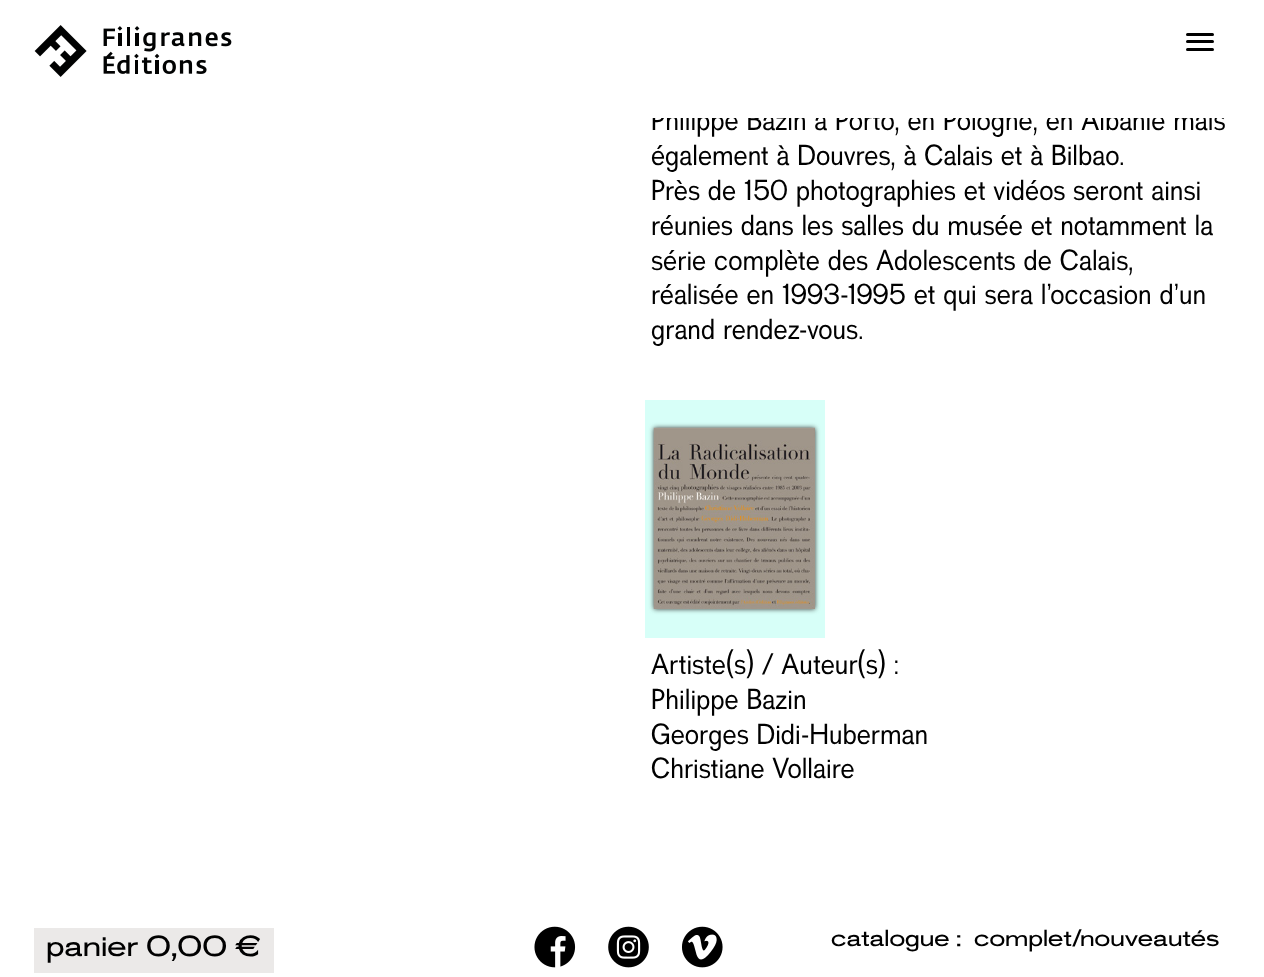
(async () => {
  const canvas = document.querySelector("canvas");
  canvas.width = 1264;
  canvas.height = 977;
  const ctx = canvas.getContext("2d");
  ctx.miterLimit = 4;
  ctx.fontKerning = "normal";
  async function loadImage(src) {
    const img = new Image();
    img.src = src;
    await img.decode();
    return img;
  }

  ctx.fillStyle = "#ffffff";
  ctx.fillRect(0, 0, 1264, 977);
  ctx.drawImage(await loadImage("img/1.png"), 34, 25, 198, 52);
  ctx.fillStyle = "#000000";
  ctx.beginPath();
  ctx.roundRect(1186, 33, 28, 3, 1.5);
  ctx.fill();
  ctx.beginPath();
  ctx.roundRect(1186, 40, 28, 3, 1.5);
  ctx.fill();
  ctx.beginPath();
  ctx.roundRect(1186, 48, 28, 3, 1.5);
  ctx.fill();
  ctx.fillStyle = "#d7fff8";
  ctx.fillRect(645, 400, 180, 238);
  ctx.fillStyle = "#333333";
  ctx.filter = "blur(2.5px)";
  ctx.beginPath();
  ctx.rect(654, 428, 161, 181);
  ctx.fill();
  ctx.filter = "none";
  ctx.drawImage(await loadImage("img/2.png"), 653, 427, 162, 182);
  ctx.fillStyle = "#ebe9e8";
  ctx.fillRect(34, 928, 240, 45);
  ctx.drawImage(await loadImage("img/3.png"), 534, 926, 42, 42);
  ctx.drawImage(await loadImage("img/4.png"), 608, 926, 41, 42);
  ctx.drawImage(await loadImage("img/5.png"), 682, 926, 41, 42);
  ctx.font = "29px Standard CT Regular";
  ctx.fillStyle = "#000000";
  ctx.fillText("Philippe Bazin à Porto, en Pologne, en Albanie mais", 651, 130);
  ctx.fillStyle = "#ffffff";
  ctx.fillRect(652, 109, 573, 9);
  ctx.fillStyle = "#000000";
  for (const [text, x, y] of [
    ["également à Douvres, à Calais et à Bilbao.", 651, 165],
    ["Près de 150 photographies et vidéos seront ainsi", 651, 200],
    ["réunies dans les salles du musée et notamment la", 651, 235],
    ["série complète des Adolescents de Calais,", 651, 270],
    ["réalisée en 1993-1995 et qui sera l’occasion d’un", 651, 304],
    ["grand rendez-vous.", 651, 339],
    ["Artiste(s) / Auteur(s) :", 651, 674],
    ["Philippe Bazin", 651, 709],
    ["Georges Didi-Huberman", 651, 744],
    ["Christiane Vollaire", 651, 778],
  ]) {
    ctx.fillText(text, x, y);
  }
  ctx.font = "29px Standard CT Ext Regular";
  ctx.fillText("panier 0,00 €", 46, 956);
  ctx.font = "23.25px Standard CT Ext Regular";
  for (const [text, x, y] of [
    ["catalogue :", 831, 946],
    ["complet/", 974, 946],
    ["nouveautés", 1080, 946],
  ]) {
    ctx.fillText(text, x, y);
  }
})();
